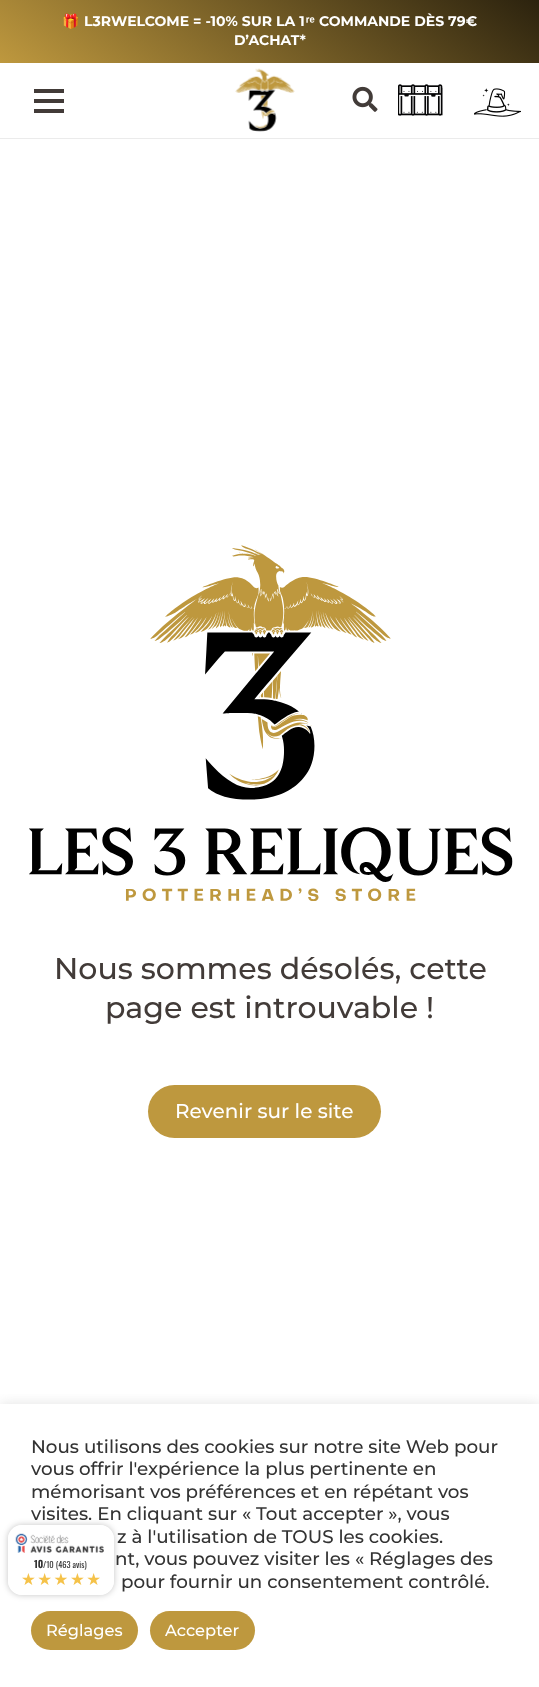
(async () => {
  const canvas = document.querySelector("canvas");
  canvas.width = 539;
  canvas.height = 1687;
  const ctx = canvas.getContext("2d");
  ctx.miterLimit = 4;
  ctx.fontKerning = "normal";
  async function loadImage(src) {
    const img = new Image();
    img.src = src;
    await img.decode();
    return img;
  }
  let gradient, path;

  ctx.fillStyle = "#ffffff";
  ctx.fillRect(0, 0, 539, 1687);
  gradient = ctx.createLinearGradient(166, 179, 374, -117);
  gradient.addColorStop(0, "#be983e");
  gradient.addColorStop(1, "#2b220e");
  ctx.fillStyle = gradient;
  ctx.fillRect(0, 0, 539, 63);
  for (const [x, y, w, h, color] of [
    [0, 138, 539, 1, "#ebebeb"],
    [34, 99, 30, 4, "#423b38"],
    [34, 89, 30, 4, "#423b38"],
    [34, 109, 30, 4, "#423b38"],
  ]) {
    ctx.fillStyle = color;
    ctx.fillRect(x, y, w, h);
  }
  ctx.drawImage(await loadImage("img/1.png"), 235, 68, 60, 64);
  ctx.drawImage(await loadImage("img/2.png"), 352, 86, 26, 26);
  ctx.drawImage(await loadImage("img/3.png"), 398, 84, 45, 32);
  ctx.drawImage(await loadImage("img/4.png"), 474, 88, 47, 29);
  ctx.drawImage(await loadImage("img/5.png"), 29, 545, 484, 356);
  ctx.fillStyle = "#be983e";
  ctx.beginPath();
  ctx.roundRect(148, 1085, 233, 53, 26.5);
  ctx.fill();
  ctx.save();
  ctx.beginPath();
  ctx.rect(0, 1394, 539, 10);
  ctx.clip();
  ctx.fillStyle = "rgba(172, 171, 171, 0.3)";
  ctx.filter = "blur(6px)";
  ctx.beginPath();
  ctx.rect(0, 1403, 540, 283);
  ctx.fill();
  ctx.filter = "none";
  ctx.restore();
  ctx.beginPath();
  ctx.roundRect(31, 1611, 107, 39, 19.5);
  ctx.fill();
  ctx.beginPath();
  ctx.roundRect(150, 1611, 105, 39, 19.5);
  ctx.fill();
  ctx.save();
  path = new Path2D("M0 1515H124V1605H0ZM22 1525H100C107.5 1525 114 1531.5 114 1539V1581C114 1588.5 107.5 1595 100 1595H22C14.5 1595 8 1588.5 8 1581V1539C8 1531.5 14.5 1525 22 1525Z");
  ctx.clip(path, "evenodd");
  ctx.fillStyle = "rgba(0, 0, 0, 0.23)";
  ctx.filter = "blur(3px)";
  ctx.beginPath();
  ctx.roundRect(8, 1525, 106, 70, 14);
  ctx.fill();
  ctx.filter = "none";
  ctx.restore();
  ctx.fillStyle = "rgba(255, 255, 255, 0.92)";
  ctx.beginPath();
  ctx.roundRect(8, 1525, 106, 70, 14);
  ctx.fill();
  ctx.drawImage(await loadImage("img/6.png"), 15, 1533, 89, 20);
  ctx.font = "bold 14px Noto Color Emoji";
  ctx.fillStyle = "#ffffff";
  ctx.fillText("🎁", 62, 26);
  ctx.font = "bold 14px Montserrat";
  ctx.fillText("L3RWELCOME = -10% SUR LA 1", 84, 26);
  ctx.font = "bold 14px Liberation Sans";
  ctx.fillText("ʳᵉ", 306, 26);
  ctx.font = "bold 14px Montserrat";
  ctx.fillText("COMMANDE DÈS 79€", 319, 26);
  ctx.fillText("D’ACHAT*", 234, 45);
  ctx.font = "500 30px Montserrat";
  ctx.fillStyle = "#423b38";
  ctx.fillText("Nous sommes désolés, cette", 54, 979);
  ctx.fillText("page est introuvable !", 105, 1018);
  ctx.font = "500 20px Montserrat";
  ctx.fillStyle = "#ffffff";
  ctx.fillText("Revenir sur le site", 175, 1118);
  ctx.font = "500 18.3px Montserrat";
  ctx.fillStyle = "#333333";
  for (const [text, x, y] of [
    ["Nous utilisons des cookies sur notre site Web pour", 31, 1453],
    ["vous offrir l'expérience la plus pertinente en", 31, 1475],
    ["mémorisant vos préférences et en répétant vos", 31, 1498],
    ["visites. En cliquant sur « Tout accepter », vous", 31, 1520],
    ["z à l'utilisation de TOUS les cookies.", 117, 1543],
    ["nt, vous pouvez visiter les « Réglages des", 115, 1565],
    ["pour fournir un consentement contrôlé.", 121, 1588],
  ]) {
    ctx.fillText(text, x, y);
  }
  ctx.font = "500 16.25px Montserrat";
  ctx.fillStyle = "#ffffff";
  ctx.fillText("Réglages", 46, 1636);
  ctx.fillText("Accepter", 165, 1636);
  ctx.font = "bold 10px Oswald";
  ctx.fillStyle = "#333333";
  ctx.fillText("10", 34, 1568);
  ctx.font = "8.5px Oswald";
  ctx.fillText("/10 (463 avis)", 43, 1568);
  ctx.letterSpacing = "1.5px";
  ctx.font = "16.5px DejaVu Sans";
  ctx.fillStyle = "#f5c249";
  ctx.fillText("★★★★★", 21, 1585);
})();
